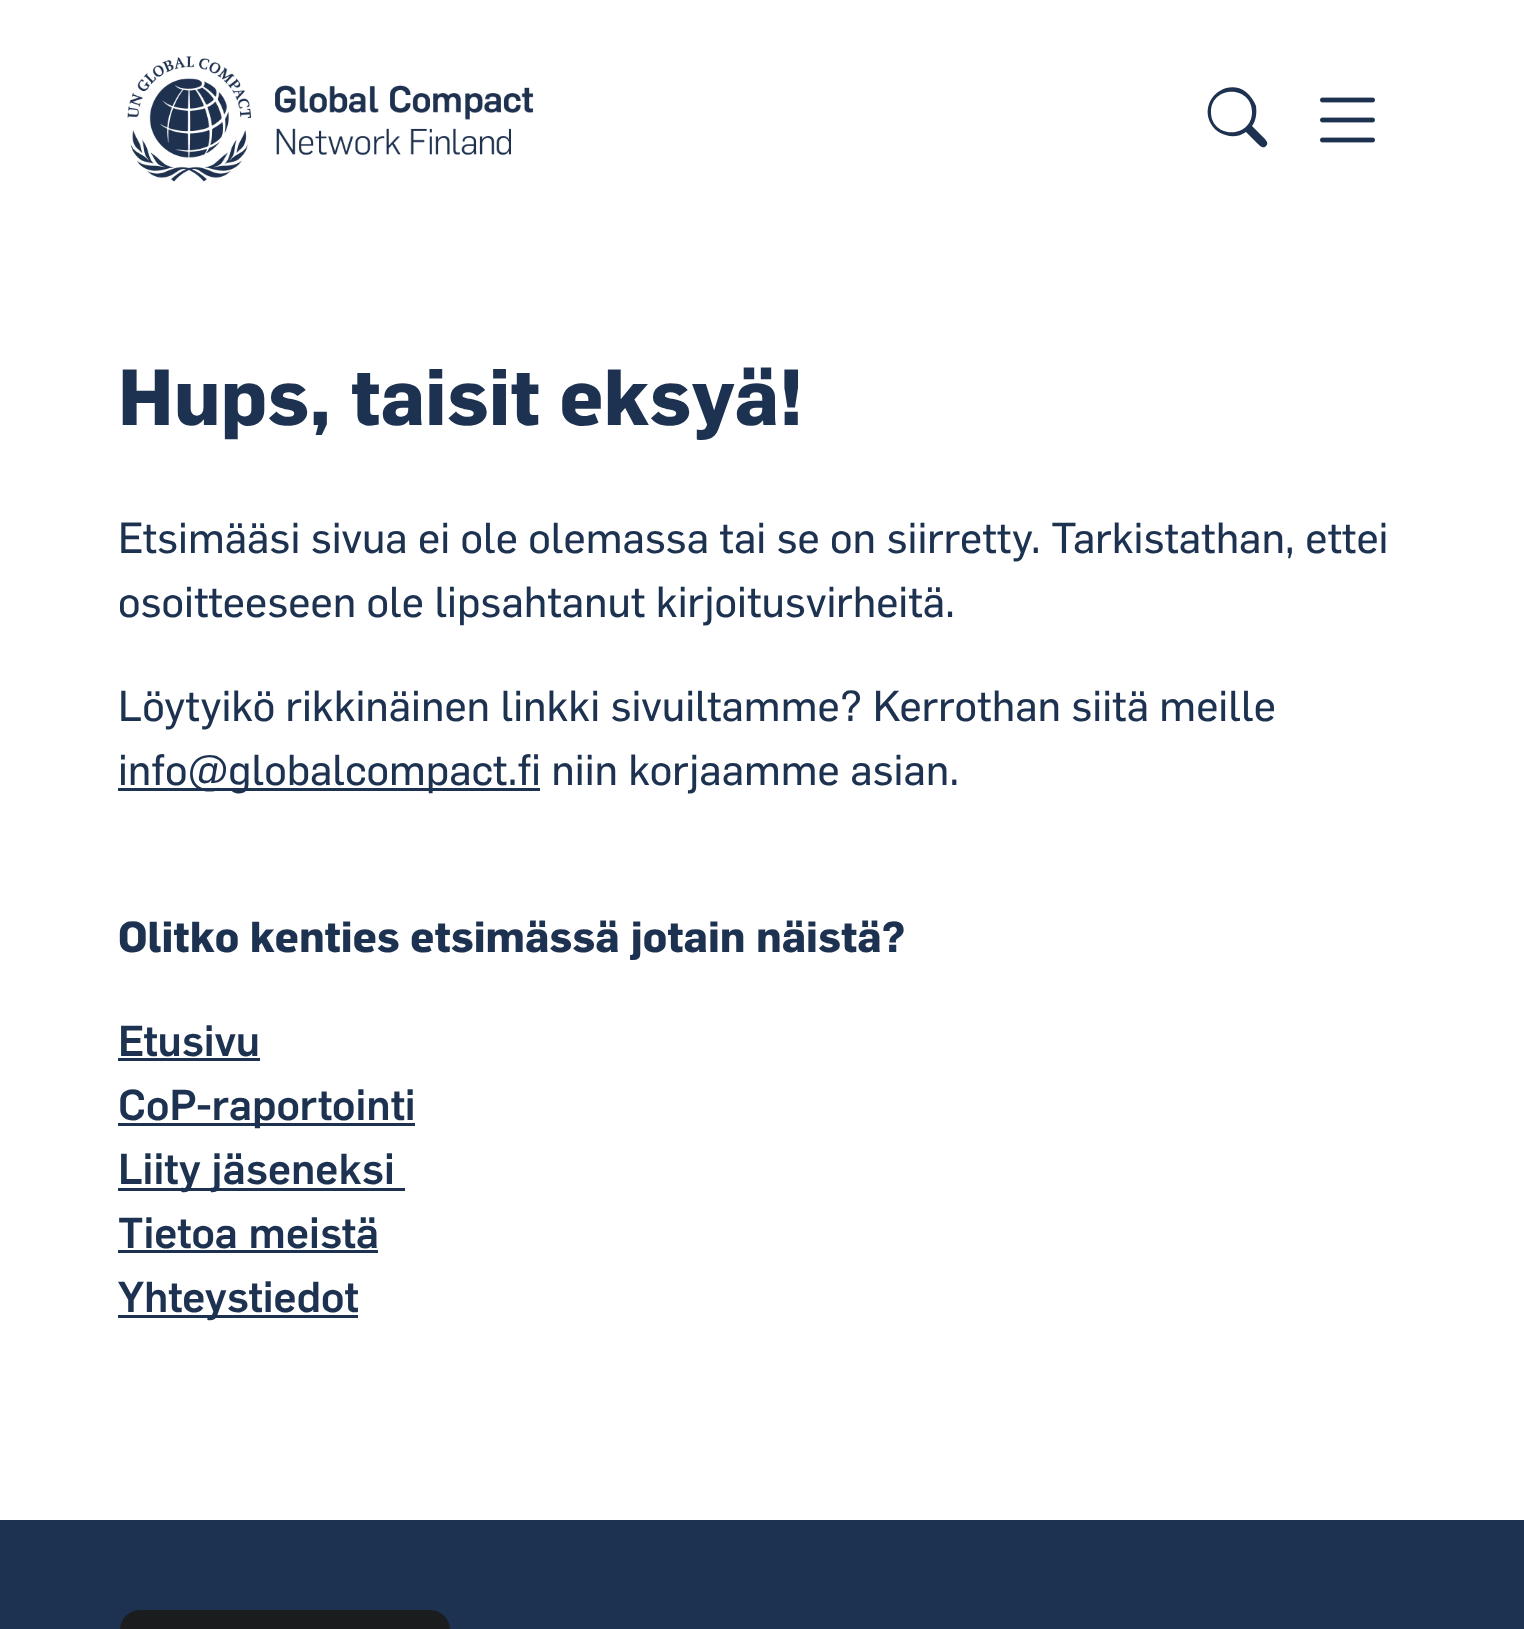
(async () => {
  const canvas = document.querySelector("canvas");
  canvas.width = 1524;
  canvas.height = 1629;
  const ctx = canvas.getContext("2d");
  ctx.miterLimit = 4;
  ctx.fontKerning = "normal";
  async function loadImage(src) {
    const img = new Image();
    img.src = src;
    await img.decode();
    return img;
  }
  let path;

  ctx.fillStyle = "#ffffff";
  ctx.fillRect(0, 0, 1524, 1629);
  ctx.drawImage(await loadImage("img/1.png"), 127, 56, 407, 126);
  ctx.fillStyle = "#1d3250";
  path = new Path2D("M1252 126C1256 121 1257 113 1256 106C1254 101 1251 96 1246 92C1226 77 1198 101 1211 124C1218 136 1235 140 1246 132L1256 142C1258 144 1263 150 1266 146C1270 143 1264 138 1262 136ZM1252 112C1252 139 1211 139 1211 112C1211 85 1252 85 1252 112Z");
  ctx.fill(path);
  ctx.drawImage(await loadImage("img/2.png"), 1320, 97, 55, 46);
  for (const [x, y, w, h, color] of [
    [118, 788, 422, 3, "#1d3250"],
    [118, 1058, 142, 3, "#1d3250"],
    [118, 1123, 297, 3, "#1d3250"],
    [118, 1188, 287, 3, "#1d3250"],
    [118, 1250, 260, 3, "#1d3250"],
    [118, 1315, 240, 3, "#1d3250"],
    [0, 1520, 1524, 109, "#1d3250"],
  ]) {
    ctx.fillStyle = color;
    ctx.fillRect(x, y, w, h);
  }
  ctx.fillStyle = "#1b1c1e";
  path = new Path2D("M140 1610H430C441 1610 450 1619 450 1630V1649H120V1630C120 1619 129 1610 140 1610Z");
  ctx.fill(path);
  ctx.font = "bold 77.9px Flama";
  ctx.fillStyle = "#1d3250";
  ctx.fillText("Hups, taisit eksyä!", 118, 425);
  ctx.font = "600 42.6px Flama";
  for (const [text, x, y] of [
    ["Etsimääsi sivua ei ole olemassa tai se on siirretty. Tarkistathan, ettei", 118, 553],
    ["osoitteeseen ole lipsahtanut kirjoitusvirheitä.", 118, 617],
    ["Löytyikö rikkinäinen linkki sivuiltamme? Kerrothan siitä meille", 118, 721],
    ["info@globalcompact.fi niin korjaamme asian.", 118, 785],
  ]) {
    ctx.fillText(text, x, y);
  }
  ctx.font = "bold 42.6px Flama";
  ctx.fillText("Olitko kenties etsimässä jotain näistä?", 118, 952);
  ctx.font = "500 42.6px Flama";
  for (const [text, x, y] of [
    ["Etusivu", 118, 1056],
    ["CoP-raportointi", 118, 1120],
    ["Liity jäseneksi", 118, 1184],
    ["Tietoa meistä", 118, 1248],
    ["Yhteystiedot", 118, 1312],
  ]) {
    ctx.fillText(text, x, y);
  }
})();
